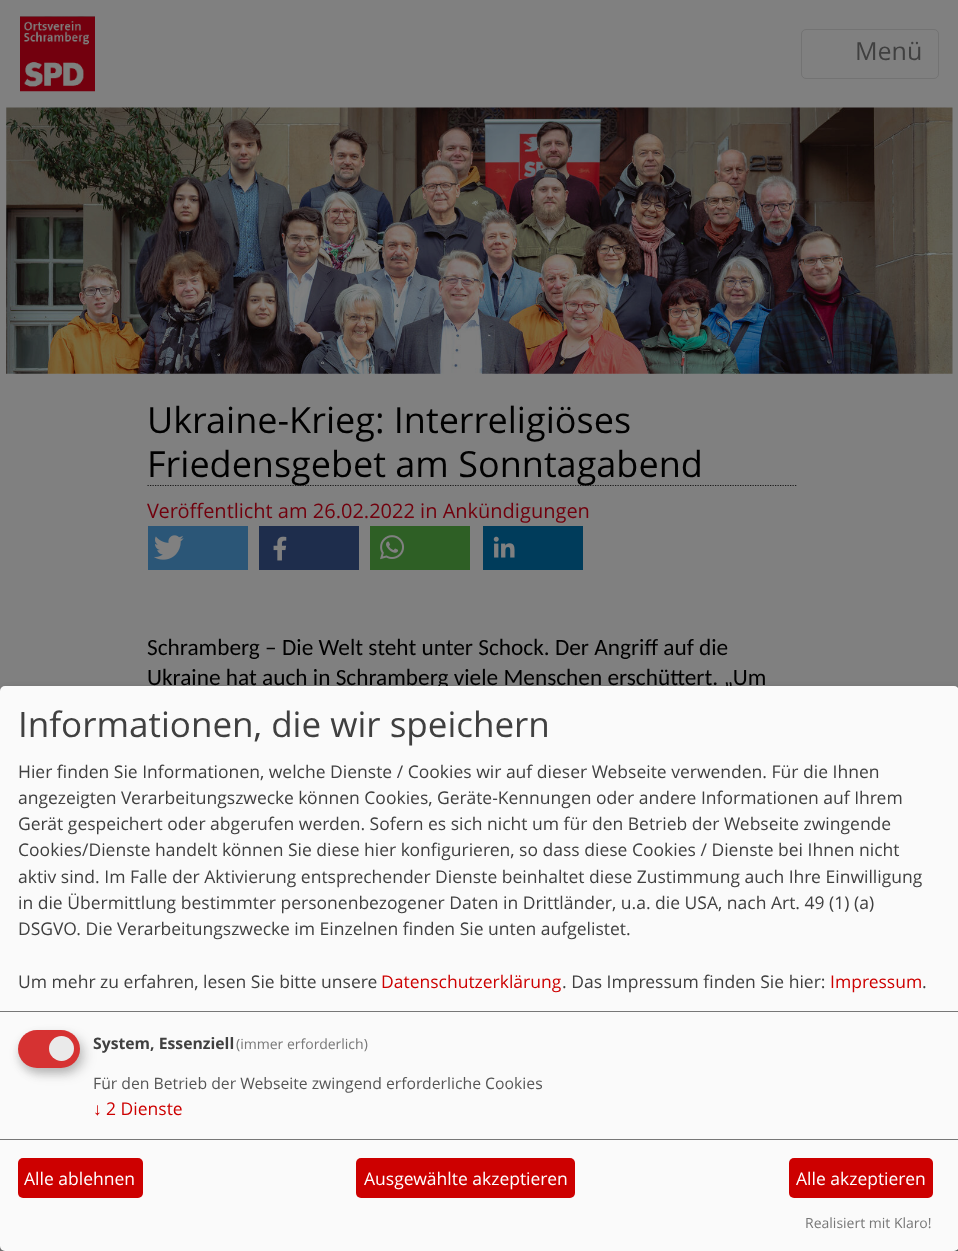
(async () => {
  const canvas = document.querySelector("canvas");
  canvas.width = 958;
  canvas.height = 1251;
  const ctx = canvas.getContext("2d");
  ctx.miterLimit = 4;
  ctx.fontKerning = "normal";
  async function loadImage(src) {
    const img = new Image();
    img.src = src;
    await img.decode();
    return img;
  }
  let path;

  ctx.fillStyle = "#808080";
  ctx.fillRect(0, 0, 958, 1251);
  ctx.drawImage(await loadImage("img/1.png"), 20, 16, 75, 76);
  ctx.beginPath();
  ctx.roundRect(801.5, 29.5, 137, 49, 4.5);
  ctx.strokeStyle = "#737373";
  ctx.stroke();
  ctx.drawImage(await loadImage("img/2.png"), 6, 107, 947, 267);
  path = new Path2D("M147.5 485.5H797.5");
  ctx.strokeStyle = "#1a1a1a";
  ctx.lineWidth = 1.2;
  ctx.setLineDash([1.25, 1.25]);
  ctx.stroke(path);
  ctx.fillStyle = "#2b5677";
  ctx.fillRect(148, 526, 100, 44);
  ctx.drawImage(await loadImage("img/3.png"), 154, 535, 30, 25);
  ctx.fillStyle = "#1e2d4c";
  ctx.fillRect(259, 526, 100, 44);
  ctx.drawImage(await loadImage("img/4.png"), 273, 536, 14, 25);
  ctx.fillStyle = "#2e5f25";
  ctx.fillRect(370, 526, 100, 44);
  ctx.drawImage(await loadImage("img/5.png"), 380, 535, 25, 25);
  ctx.fillStyle = "#003c5b";
  ctx.fillRect(483, 526, 100, 44);
  ctx.drawImage(await loadImage("img/6.png"), 493, 536, 22, 22);
  ctx.fillStyle = "rgba(0, 0, 0, 0.19)";
  ctx.filter = "blur(6px)";
  ctx.beginPath();
  ctx.roundRect(6, 693, 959, 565, 5);
  ctx.fill();
  ctx.filter = "none";
  ctx.fillStyle = "rgba(0, 0, 0, 0.2)";
  ctx.filter = "blur(4px)";
  ctx.beginPath();
  ctx.roundRect(0, 691, 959, 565, 5);
  ctx.fill();
  ctx.filter = "none";
  ctx.font = "25px Open Sans";
  ctx.fillStyle = "#404040";
  ctx.fillText("Menü", 855, 60);
  ctx.font = "36px Open Sans";
  ctx.fillStyle = "#000000";
  ctx.fillText("Ukraine-Krieg: Interreligiöses", 147, 433);
  ctx.fillText("Friedensgebet am Sonntagabend", 147, 477);
  ctx.font = "20px Open Sans";
  ctx.fillStyle = "#71000d";
  ctx.fillText("Veröffentlicht am 26.02.2022 in Ankündigungen", 147, 518);
  ctx.font = "23.3px Carlito";
  ctx.fillStyle = "#000000";
  ctx.fillText("Schramberg – Die Welt steht unter Schock. Der Angriff auf die", 147, 655);
  ctx.fillText("Ukraine hat auch in Schramberg viele Menschen erschüttert. „Um", 147, 685);
  ctx.fillStyle = "#fafafa";
  ctx.beginPath();
  ctx.roundRect(0, 686, 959, 565, 5);
  ctx.fill();
  ctx.fillStyle = "#777777";
  ctx.fillRect(0, 1011, 958, 1);
  ctx.font = "35px Open Sans";
  ctx.fillStyle = "#404040";
  ctx.fillText("Informationen, die wir speichern", 18, 737);
  ctx.font = "17.5px Open Sans";
  for (const [text, x, y] of [
    ["Hier finden Sie Informationen, welche Dienste / Cookies wir auf dieser Webseite verwenden. Für die Ihnen", 18, 778],
    ["angezeigten Verarbeitungszwecke können Cookies, Geräte-Kennungen oder andere Informationen auf Ihrem", 18, 804],
    ["Gerät gespeichert oder abgerufen werden. Sofern es sich nicht um für den Betrieb der Webseite zwingende", 18, 830],
    ["Cookies/Dienste handelt können Sie diese hier konfigurieren, so dass diese Cookies / Dienste bei Ihnen nicht", 18, 856],
    ["aktiv sind. Im Falle der Aktivierung entsprechender Dienste beinhaltet diese Zustimmung auch Ihre Einwilligung", 18, 883],
    ["in die Übermittlung bestimmter personenbezogener Daten in Drittländer, u.a. die USA, nach Art. 49 (1) (a)", 18, 909],
    ["DSGVO. Die Verarbeitungszwecke im Einzelnen finden Sie unten aufgelistet.", 18, 935],
    ["Um mehr zu erfahren, lesen Sie bitte unsere", 18, 988],
  ]) {
    ctx.fillText(text, x, y);
  }
  ctx.fillStyle = "#cd0000";
  ctx.fillText("Datenschutzerklärung", 381, 988);
  ctx.fillStyle = "#404040";
  ctx.fillText(". Das Impressum finden Sie hier:", 562, 988);
  ctx.fillStyle = "#cd0000";
  ctx.fillText("Impressum", 830, 988);
  ctx.fillStyle = "#404040";
  ctx.fillText(".", 922, 988);
  ctx.fillStyle = "rgba(0, 0, 0, 0.15)";
  ctx.filter = "blur(6px)";
  ctx.beginPath();
  ctx.roundRect(24, 1036, 62, 38, 19);
  ctx.fill();
  ctx.filter = "none";
  ctx.fillStyle = "rgba(50, 50, 50, 0.2)";
  ctx.filter = "blur(4px)";
  ctx.beginPath();
  ctx.roundRect(18, 1035, 62, 38, 19);
  ctx.fill();
  ctx.filter = "none";
  ctx.fillStyle = "#d63232";
  ctx.beginPath();
  ctx.roundRect(18, 1030, 62, 38, 19);
  ctx.fill();
  ctx.fillStyle = "#eaeaea";
  ctx.beginPath();
  ctx.arc(61.5, 1048.5, 12.5, 0, Math.PI * 2);
  ctx.fill();
  ctx.font = "bold 15.75px Open Sans";
  ctx.fillStyle = "#404040";
  ctx.fillText("System, Essenziell", 93, 1049);
  ctx.font = "14px Open Sans";
  ctx.fillStyle = "#777777";
  ctx.fillText("(immer erforderlich)", 236, 1049);
  ctx.font = "15.75px Open Sans";
  ctx.fillStyle = "#555555";
  ctx.fillText("Für den Betrieb der Webseite zwingend erforderliche Cookies", 93, 1089);
  ctx.font = "17.5px Liberation Sans";
  ctx.fillStyle = "#cd0000";
  ctx.fillText("↓", 93, 1115);
  ctx.font = "17.5px Open Sans";
  ctx.fillText("2 Dienste", 106, 1115);
  ctx.fillStyle = "#777777";
  ctx.fillRect(0, 1139, 958, 1);
  ctx.fillStyle = "#cd0000";
  ctx.beginPath();
  ctx.roundRect(18, 1158, 125, 40, 5);
  ctx.fill();
  ctx.fillStyle = "#ffffff";
  ctx.fillText("Alle ablehnen", 24, 1185);
  ctx.fillStyle = "#cd0000";
  ctx.beginPath();
  ctx.roundRect(356, 1158, 219, 40, 5);
  ctx.fill();
  ctx.fillStyle = "#ffffff";
  ctx.fillText("Ausgewählte akzeptieren", 364, 1185);
  ctx.fillStyle = "#cd0000";
  ctx.beginPath();
  ctx.roundRect(789, 1158, 144, 40, 5);
  ctx.fill();
  ctx.fillStyle = "#ffffff";
  ctx.fillText("Alle akzeptieren", 796, 1185);
  ctx.font = "14px Open Sans";
  ctx.fillStyle = "#777777";
  ctx.fillText("Realisiert mit Klaro!", 805, 1228);
})();
